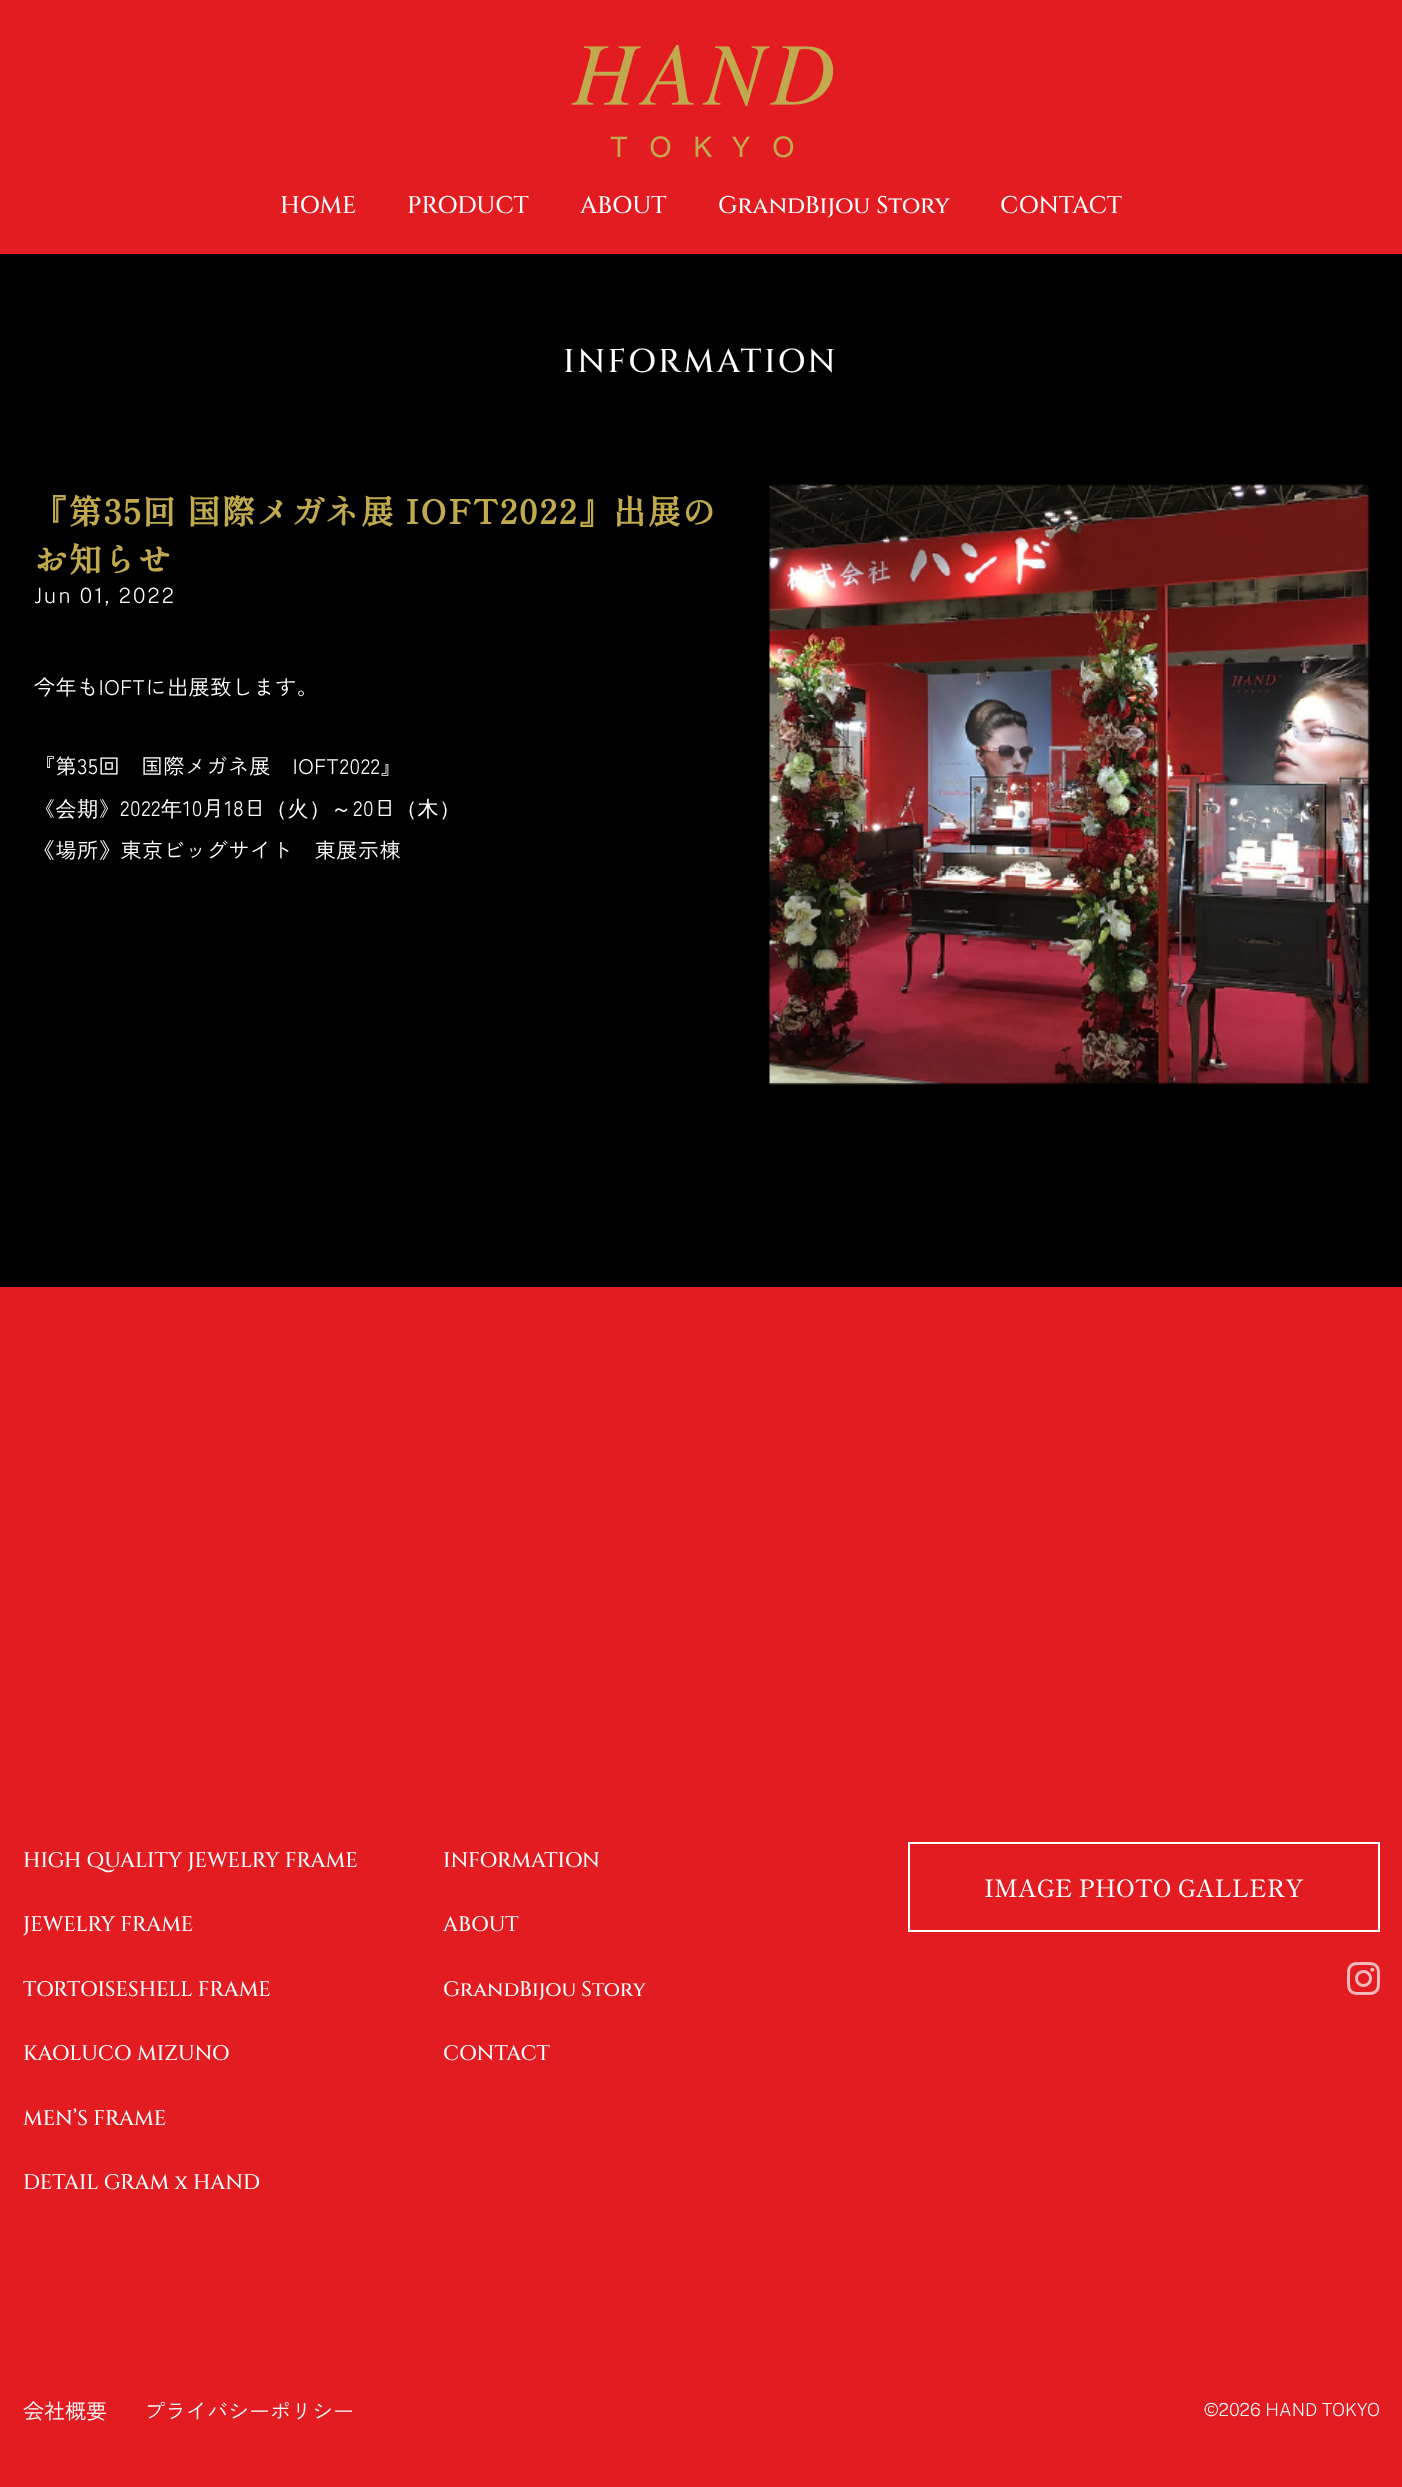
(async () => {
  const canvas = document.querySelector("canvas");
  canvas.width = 1402;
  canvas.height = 2487;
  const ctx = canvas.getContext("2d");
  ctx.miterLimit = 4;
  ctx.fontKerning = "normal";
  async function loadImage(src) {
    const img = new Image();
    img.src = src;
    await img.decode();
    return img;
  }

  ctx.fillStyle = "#e21c21";
  ctx.fillRect(0, 0, 1402, 2487);
  ctx.drawImage(await loadImage("img/1.png"), 571, 45, 263, 113);
  ctx.fillStyle = "#000000";
  ctx.fillRect(0, 254, 1402, 1033);
  ctx.drawImage(await loadImage("img/2.png"), 769, 484, 601, 601);
  ctx.strokeStyle = "#ffffff";
  ctx.lineWidth = 2;
  ctx.strokeRect(909, 1843, 470, 88);
  ctx.drawImage(await loadImage("img/3.png"), 1347, 1962, 33, 33);
  ctx.font = "500 24px Cinzel";
  ctx.fillStyle = "#ffffff";
  for (const [text, x, y] of [
    ["HOME", 280, 213],
    ["PRODUCT", 407, 213],
    ["ABOUT", 580, 213],
    ["GrandBijou Story", 718, 213],
    ["CONTACT", 1000, 213],
  ]) {
    ctx.fillText(text, x, y);
  }
  ctx.letterSpacing = "2.6px";
  ctx.font = "500 33px Cinzel";
  ctx.fillText("INFORMATION", 563, 372);
  ctx.letterSpacing = "1.65px";
  ctx.font = "bold 33px Shippori Mincho";
  ctx.fillStyle = "#c1aa4e";
  ctx.fillText("『第35回 国際メガネ展 IOFT2022』出展の", 34, 524);
  ctx.fillText("お知らせ", 34, 572);
  ctx.letterSpacing = "2.1px";
  ctx.font = "100 21px Public Sans";
  ctx.fillStyle = "#ffffff";
  ctx.fillText("Jun 01, 2022", 34, 603);
  ctx.letterSpacing = "0.6px";
  ctx.font = "21px Zen Kaku Gothic New";
  ctx.fillText("今年もIOFTに出展致します。", 34, 695);
  ctx.fillText("『第35回　国際メガネ展　IOFT2022』", 34, 774);
  ctx.font = "500 21px WenQuanYi Zen Hei";
  ctx.fillText("《会期》", 34, 816);
  ctx.font = "21px Zen Kaku Gothic New";
  ctx.fillText("2022", 120, 816);
  ctx.font = "500 21px WenQuanYi Zen Hei";
  ctx.fillText("年", 161, 816);
  ctx.font = "21px Zen Kaku Gothic New";
  ctx.fillText("10月18日", 183, 816);
  ctx.font = "500 21px WenQuanYi Zen Hei";
  ctx.fillText("（火）～", 266, 816);
  ctx.font = "21px Zen Kaku Gothic New";
  ctx.fillText("20日", 353, 816);
  ctx.font = "500 21px WenQuanYi Zen Hei";
  ctx.fillText("（木）", 396, 816);
  ctx.font = "21px Zen Kaku Gothic New";
  ctx.fillText("《場所》東京ビッグサイト　東展示棟", 34, 858);
  ctx.letterSpacing = "0px";
  ctx.font = "500 21px Cinzel";
  for (const [text, x, y] of [
    ["HIGH QUALITY JEWELRY FRAME", 23, 1867],
    ["JEWELRY FRAME", 23, 1931],
    ["TORTOISESHELL FRAME", 23, 1996],
    ["KAOLUCO MIZUNO", 23, 2060],
    ["MEN’S FRAME", 23, 2125],
    ["DETAIL GRAM x HAND", 23, 2189],
    ["INFORMATION", 443, 1867],
    ["ABOUT", 443, 1931],
    ["GrandBijou Story", 443, 1996],
    ["CONTACT", 443, 2060],
  ]) {
    ctx.fillText(text, x, y);
  }
  ctx.font = "500 24px Shippori Mincho";
  ctx.fillText("IMAGE PHOTO GALLERY", 984, 1897);
  ctx.font = "21px Zen Kaku Gothic New";
  ctx.fillText("会社概要", 23, 2419);
  ctx.fillText("プライバシーポリシー", 144, 2419);
  ctx.font = "100 18px Public Sans";
  ctx.fillText("©2026 HAND TOKYO", 1204, 2416);
})();
